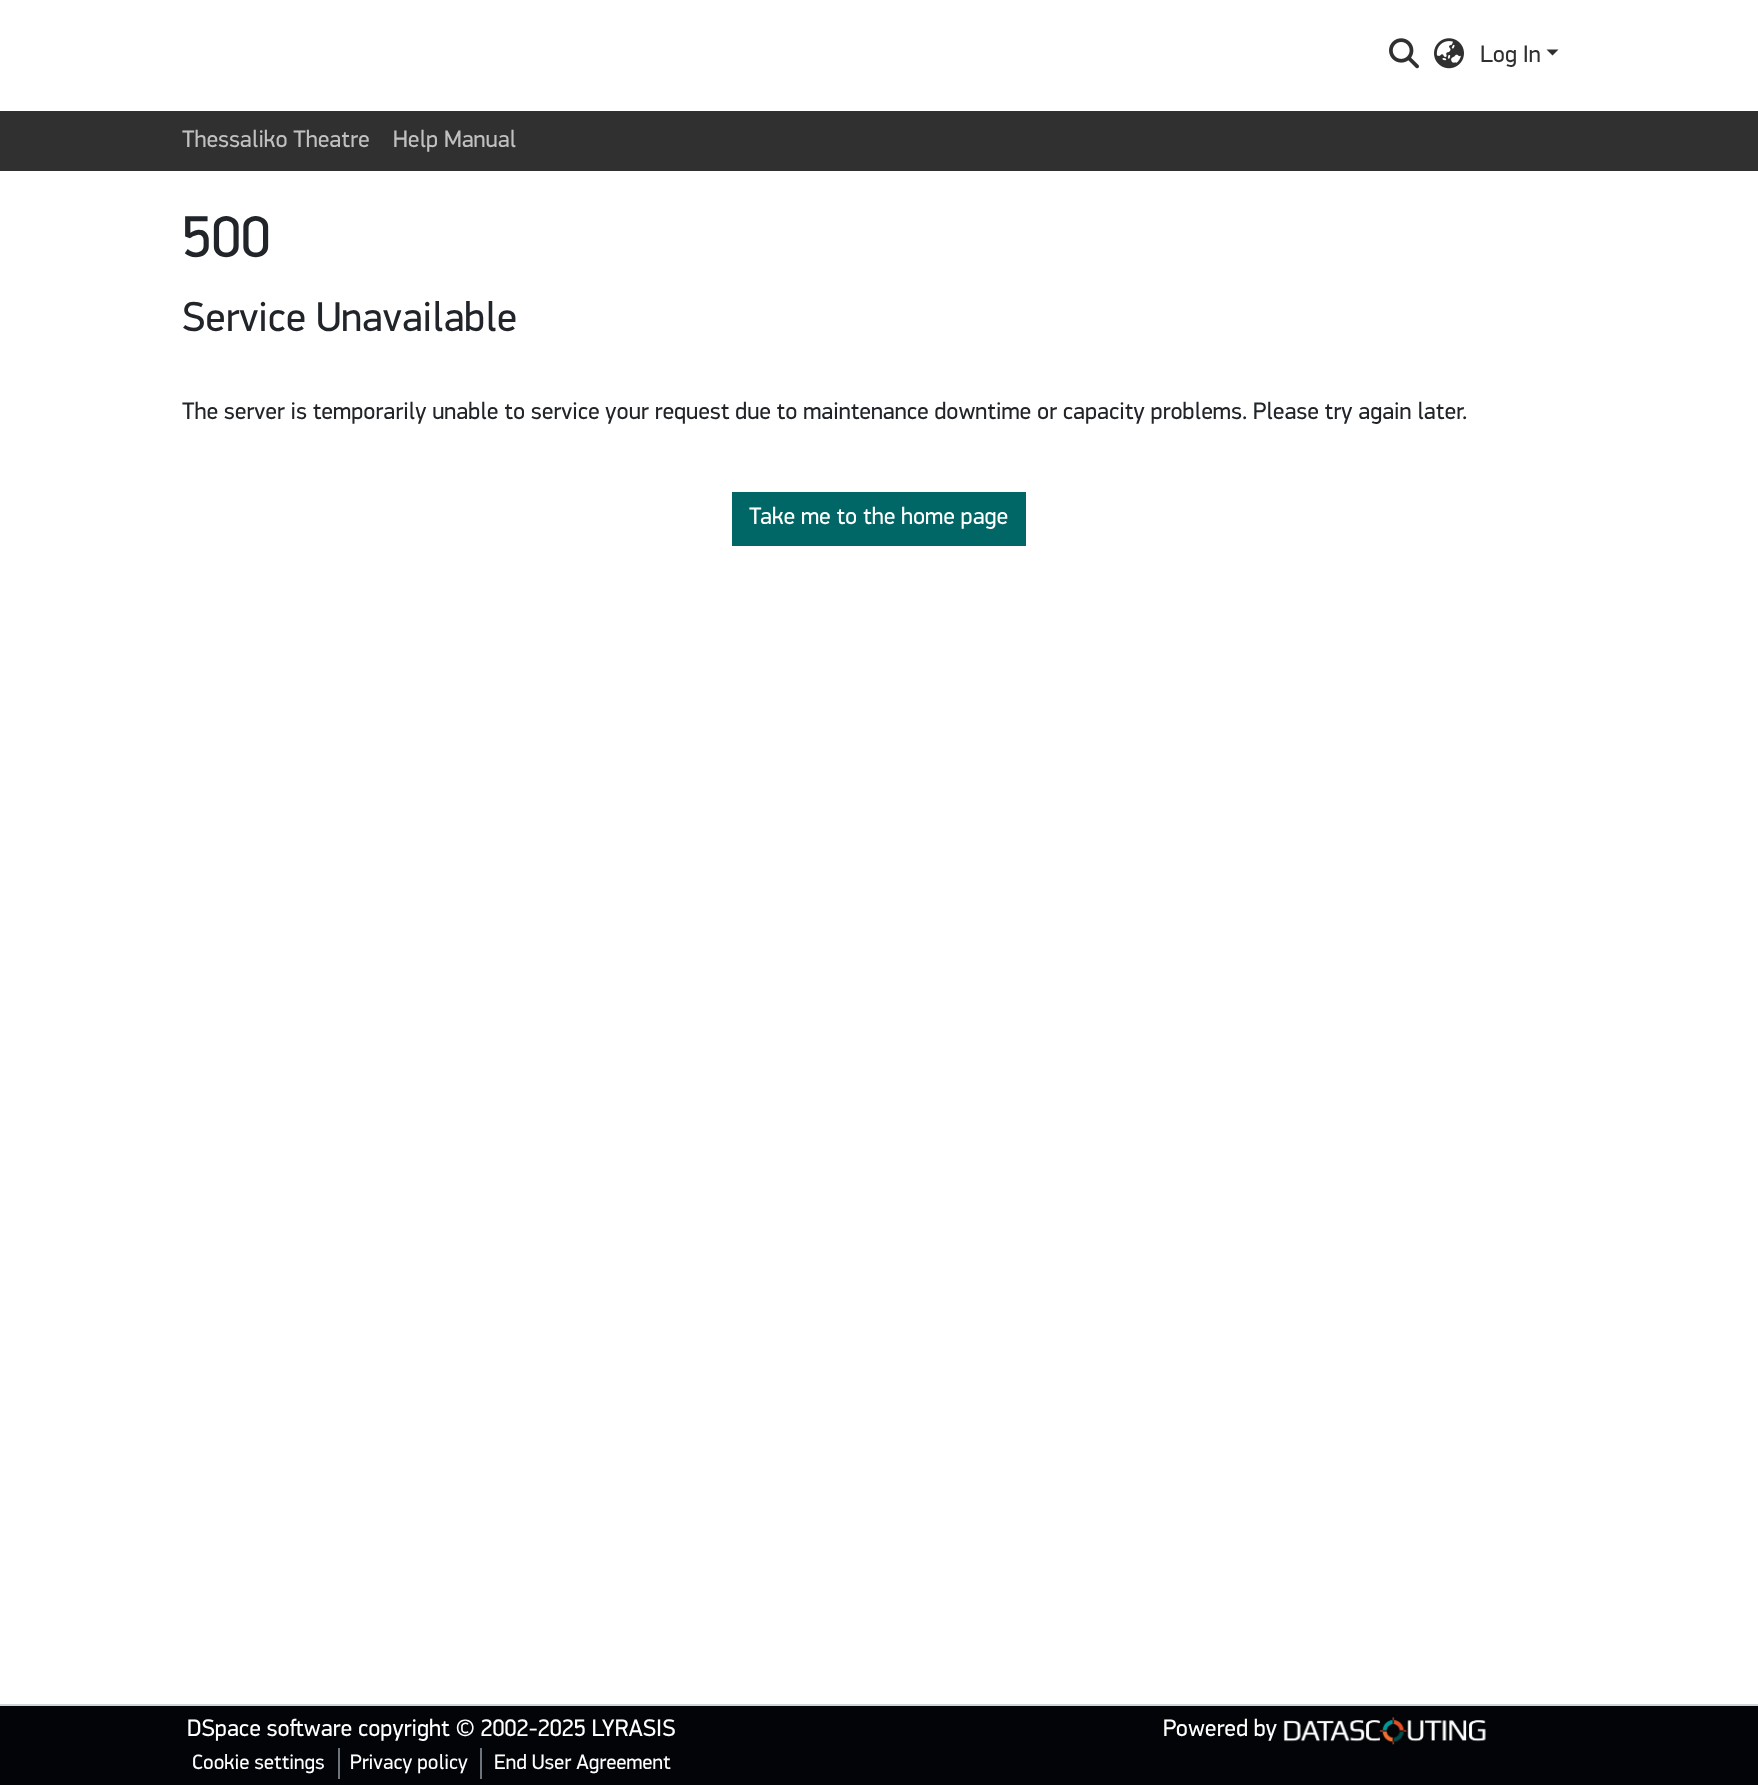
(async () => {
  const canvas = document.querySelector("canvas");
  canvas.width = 1758;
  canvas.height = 1785;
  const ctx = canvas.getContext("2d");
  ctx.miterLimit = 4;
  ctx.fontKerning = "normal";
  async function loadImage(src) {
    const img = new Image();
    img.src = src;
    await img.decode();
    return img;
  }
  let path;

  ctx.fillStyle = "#ffffff";
  ctx.fillRect(0, 0, 1758, 1785);
  ctx.drawImage(await loadImage("img/1.png"), 1389, 38, 30, 31);
  ctx.drawImage(await loadImage("img/2.png"), 1434, 38, 30, 31);
  ctx.fillStyle = "#303030";
  path = new Path2D("M1546.5 49.5H1558.5L1552.5 55.5Z");
  ctx.fill(path);
  for (const [x, y, w, h, color] of [
    [0, 111, 1758, 60, "#303030"],
    [732, 492, 294, 54, "#006666"],
    [0, 1706, 1758, 79, "#020407"],
    [0, 1704, 1758, 2, "#ced4da"],
    [338, 1748, 2, 31, "#6c757d"],
    [480, 1748, 2, 31, "#6c757d"],
  ]) {
    ctx.fillStyle = color;
    ctx.fillRect(x, y, w, h);
  }
  ctx.drawImage(await loadImage("img/3.png"), 1283, 1717, 203, 28);
  ctx.font = "24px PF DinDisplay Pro";
  ctx.fillStyle = "#303030";
  ctx.fillText("Log In", 1480, 62);
  ctx.fillStyle = "#c0c0c0";
  ctx.fillText("Thessaliko Theatre", 182, 147);
  ctx.fillText("Help Manual", 393, 147);
  ctx.font = "59px PF DinDisplay Pro";
  ctx.fillStyle = "#212529";
  ctx.fillText("500", 182, 257);
  ctx.font = "41.75px PF DinDisplay Pro";
  ctx.fillText("Service Unavailable", 182, 331);
  ctx.font = "24px PF DinDisplay Pro";
  ctx.fillText("The server is temporarily unable to service your request due to maintenance downtime or capacity problems. Please try again later.", 182, 419);
  ctx.fillStyle = "#ffffff";
  ctx.fillText("Take me to the home page", 749, 524);
  ctx.fillText("DSpace software copyright © 2002-2025 LYRASIS", 187, 1736);
  ctx.font = "21px PF DinDisplay Pro";
  for (const [text, x, y] of [
    ["Cookie settings", 192, 1769],
    ["Privacy policy", 350, 1769],
    ["End User Agreement", 494, 1769],
  ]) {
    ctx.fillText(text, x, y);
  }
  ctx.font = "24px PF DinDisplay Pro";
  ctx.fillText("Powered by", 1163, 1736);
})();
